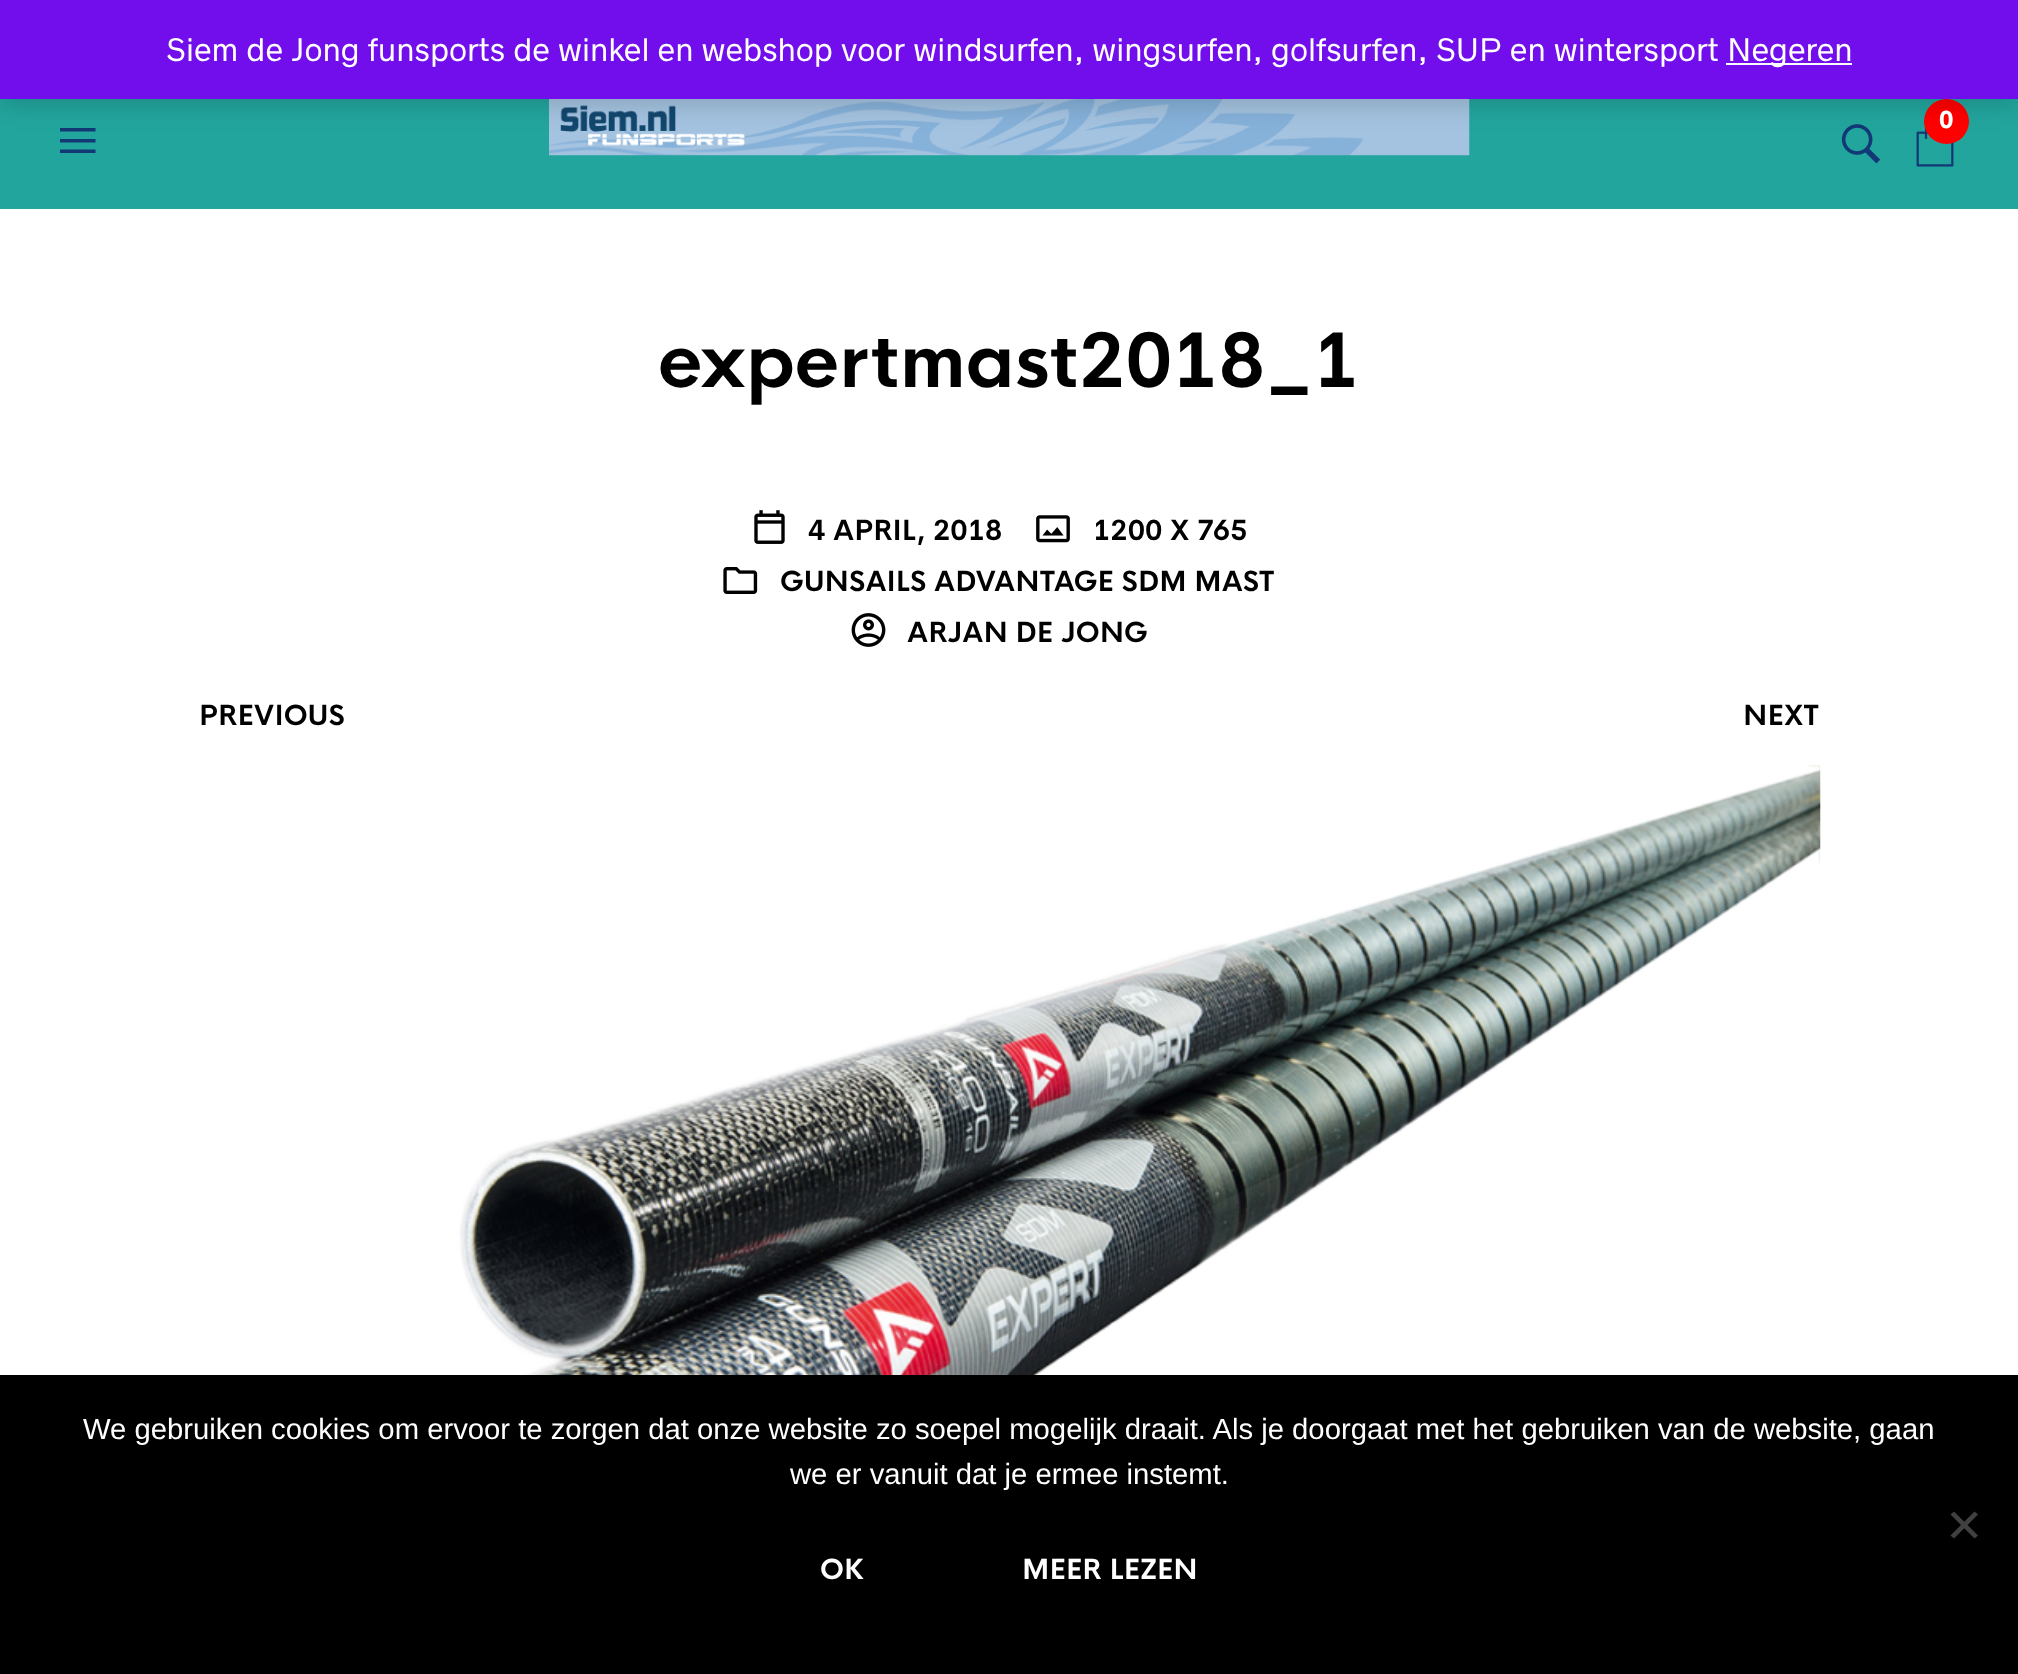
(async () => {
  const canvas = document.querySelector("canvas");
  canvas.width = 2018;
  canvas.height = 1674;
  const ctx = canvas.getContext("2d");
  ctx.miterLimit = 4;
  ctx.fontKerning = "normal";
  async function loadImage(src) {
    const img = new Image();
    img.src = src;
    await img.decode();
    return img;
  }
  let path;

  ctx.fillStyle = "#ffffff";
  ctx.fillRect(0, 0, 2018, 1674);
  ctx.fillStyle = "#22a59d";
  ctx.fillRect(0, 99, 2018, 110);
  ctx.drawImage(await loadImage("img/1.png"), 549, 99, 921, 57);
  ctx.drawImage(await loadImage("img/2.png"), 1916, 128, 38, 39);
  ctx.fillStyle = "#ff0000";
  ctx.beginPath();
  ctx.arc(1946.5, 121.5, 22.5, 0, Math.PI * 2);
  ctx.fill();
  ctx.drawImage(await loadImage("img/3.png"), 1841, 124, 40, 40);
  ctx.fillStyle = "#123875";
  path = new Path2D("M60 139H95.5V142.5H60ZM60 128H95.5V131.5H60ZM60 149.5H95.5V153H60Z");
  ctx.fill(path);
  ctx.fillStyle = "rgba(0, 0, 0, 0.2)";
  ctx.filter = "blur(14.5px)";
  ctx.beginPath();
  ctx.rect(0, 2, 2018, 99);
  ctx.fill();
  ctx.filter = "none";
  ctx.fillStyle = "#720eec";
  ctx.fillRect(0, 0, 2018, 99);
  ctx.fillStyle = "#fcfbfe";
  ctx.fillRect(1726, 63, 126, 2);
  ctx.drawImage(await loadImage("img/4.png"), 754, 510, 31, 34);
  ctx.drawImage(await loadImage("img/5.png"), 1036, 515, 34, 28);
  ctx.drawImage(await loadImage("img/6.png"), 723, 567, 35, 27);
  ctx.drawImage(await loadImage("img/7.png"), 851, 613, 35, 34);
  ctx.drawImage(await loadImage("img/8.png"), 317, 765, 1504, 610);
  ctx.fillStyle = "#000000";
  ctx.fillRect(0, 1375, 2018, 299);
  ctx.fillStyle = "#404040";
  path = new Path2D("M1974.5 1511.5L1978 1514.5L1954 1538.5L1950.5 1535.5Z");
  ctx.fill(path);
  path = new Path2D("M1950.5 1514.5L1954 1511.5L1978 1535.5L1974.5 1538.5Z");
  ctx.fill(path);
  ctx.font = "29.25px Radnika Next";
  ctx.fillStyle = "#ffffff";
  ctx.fillText("Siem de Jong funsports de winkel en webshop voor windsurfen, wingsurfen, golfsurfen, SUP en wintersport", 166, 61);
  ctx.fillText("Negeren", 1727, 61);
  ctx.font = "bold 22px Radnika Next";
  ctx.fillText("0", 1939, 128);
  ctx.font = "bold 72.75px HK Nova";
  ctx.fillStyle = "#000000";
  ctx.fillText("expertmast2018_1", 658, 387);
  ctx.font = "bold 27px HK Nova";
  for (const [text, x, y] of [
    ["4 APRIL, 2018", 808, 540],
    ["1200 X 765", 1093, 540],
    ["GUNSAILS ADVANTAGE SDM MAST", 780, 591],
    ["ARJAN DE JONG", 907, 642],
    ["PREVIOUS", 199, 725],
    ["NEXT", 1743, 725],
  ]) {
    ctx.fillText(text, x, y);
  }
  ctx.font = "29.25px Liberation Sans";
  ctx.fillStyle = "#ffffff";
  ctx.fillText("We gebruiken cookies om ervoor te zorgen dat onze website zo soepel mogelijk draait. Als je doorgaat met het gebruiken van de website, gaan", 83, 1439);
  ctx.fillText("we er vanuit dat je ermee instemt.", 790, 1484);
  ctx.font = "bold 27px HK Nova";
  ctx.fillText("OK", 820, 1579);
  ctx.fillText("MEER LEZEN", 1022, 1579);
})();
